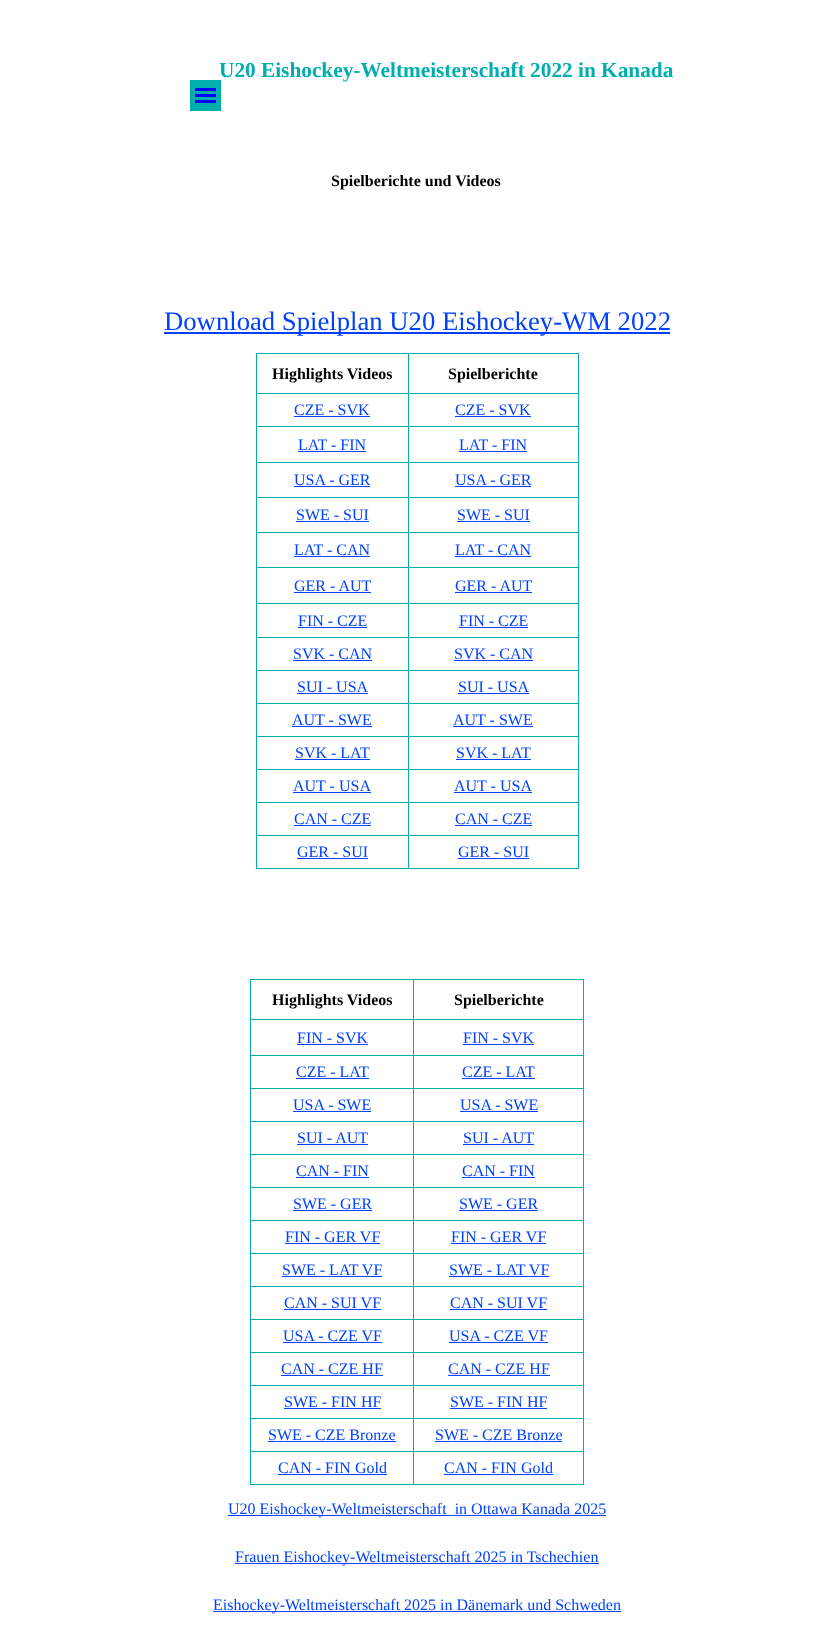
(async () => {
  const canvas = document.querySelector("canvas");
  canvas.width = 834;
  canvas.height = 1626;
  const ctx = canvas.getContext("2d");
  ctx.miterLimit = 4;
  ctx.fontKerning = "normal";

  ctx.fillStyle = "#ffffff";
  ctx.fillRect(0, 0, 834, 1626);
  for (const [x, y, w, h, color] of [
    [190, 80, 31, 31, "#00aeae"],
    [195, 88, 21, 3, "#0000ff"],
    [195, 94, 21, 3, "#0000ff"],
    [195, 100, 21, 3, "#0000ff"],
    [164, 332, 506, 2, "#0040ff"],
    [408, 353, 171, 1, "#00aeae"],
    [408, 393, 171, 1, "#00aeae"],
    [408, 426, 171, 1, "#00aeae"],
    [408, 462, 171, 1, "#00aeae"],
    [408, 497, 171, 1, "#00aeae"],
    [408, 532, 171, 1, "#00aeae"],
    [408, 567, 171, 1, "#00aeae"],
    [408, 603, 171, 1, "#00aeae"],
    [408, 637, 171, 1, "#00aeae"],
    [408, 670, 171, 1, "#00aeae"],
    [408, 703, 171, 1, "#00aeae"],
    [408, 736, 171, 1, "#00aeae"],
    [408, 769, 171, 1, "#00aeae"],
    [408, 802, 171, 1, "#00aeae"],
    [408, 835, 171, 1, "#00aeae"],
    [578, 835, 1, 34, "#00aeae"],
    [408, 868, 171, 1, "#00aeae"],
    [408, 835, 1, 34, "#00aeae"],
    [256, 835, 153, 1, "#00aeae"],
    [408, 802, 1, 34, "#00aeae"],
    [256, 802, 153, 1, "#00aeae"],
    [408, 769, 1, 34, "#00aeae"],
    [256, 769, 153, 1, "#00aeae"],
    [408, 736, 1, 34, "#00aeae"],
    [256, 736, 153, 1, "#00aeae"],
    [408, 703, 1, 34, "#00aeae"],
    [256, 703, 153, 1, "#00aeae"],
    [408, 670, 1, 34, "#00aeae"],
    [256, 670, 153, 1, "#00aeae"],
    [408, 637, 1, 34, "#00aeae"],
    [256, 637, 153, 1, "#00aeae"],
    [408, 603, 1, 35, "#00aeae"],
    [256, 603, 153, 1, "#00aeae"],
    [408, 567, 1, 37, "#00aeae"],
    [256, 567, 153, 1, "#00aeae"],
    [408, 532, 1, 36, "#00aeae"],
    [256, 532, 153, 1, "#00aeae"],
    [408, 497, 1, 36, "#00aeae"],
    [256, 497, 153, 1, "#00aeae"],
    [408, 462, 1, 36, "#00aeae"],
    [256, 462, 153, 1, "#00aeae"],
    [408, 426, 1, 37, "#00aeae"],
    [256, 426, 153, 1, "#00aeae"],
    [408, 393, 1, 34, "#00aeae"],
    [256, 393, 153, 1, "#00aeae"],
    [408, 353, 1, 41, "#00aeae"],
    [256, 353, 153, 1, "#00aeae"],
    [256, 868, 153, 1, "#00aeae"],
    [256, 835, 1, 34, "#00aeae"],
    [256, 802, 1, 34, "#00aeae"],
    [256, 769, 1, 34, "#00aeae"],
    [256, 736, 1, 34, "#00aeae"],
    [256, 703, 1, 34, "#00aeae"],
    [256, 670, 1, 34, "#00aeae"],
    [256, 637, 1, 34, "#00aeae"],
    [256, 603, 1, 35, "#00aeae"],
    [256, 567, 1, 37, "#00aeae"],
    [256, 532, 1, 36, "#00aeae"],
    [256, 497, 1, 36, "#00aeae"],
    [256, 462, 1, 36, "#00aeae"],
    [256, 426, 1, 37, "#00aeae"],
    [256, 393, 1, 34, "#00aeae"],
    [256, 353, 1, 41, "#00aeae"],
    [578, 802, 1, 34, "#00aeae"],
    [578, 769, 1, 34, "#00aeae"],
    [578, 736, 1, 34, "#00aeae"],
    [578, 703, 1, 34, "#00aeae"],
    [578, 670, 1, 34, "#00aeae"],
    [578, 637, 1, 34, "#00aeae"],
    [578, 603, 1, 35, "#00aeae"],
    [578, 567, 1, 37, "#00aeae"],
    [578, 532, 1, 36, "#00aeae"],
    [578, 497, 1, 36, "#00aeae"],
    [578, 462, 1, 36, "#00aeae"],
    [578, 426, 1, 37, "#00aeae"],
    [578, 393, 1, 34, "#00aeae"],
    [578, 353, 1, 41, "#00aeae"],
    [294, 416, 76, 1, "#0040ff"],
    [455, 416, 76, 1, "#0040ff"],
    [298, 451, 68, 1, "#0040ff"],
    [459, 451, 68, 1, "#0040ff"],
    [294, 486, 76, 1, "#0040ff"],
    [455, 486, 76, 1, "#0040ff"],
    [296, 521, 73, 1, "#0040ff"],
    [457, 521, 73, 1, "#0040ff"],
    [294, 556, 76, 1, "#0040ff"],
    [455, 556, 76, 1, "#0040ff"],
    [294, 592, 77, 1, "#0040ff"],
    [455, 592, 77, 1, "#0040ff"],
    [298, 627, 69, 1, "#0040ff"],
    [459, 627, 69, 1, "#0040ff"],
    [293, 660, 79, 1, "#0040ff"],
    [454, 660, 79, 1, "#0040ff"],
    [297, 693, 71, 1, "#0040ff"],
    [458, 693, 71, 1, "#0040ff"],
    [292, 726, 80, 1, "#0040ff"],
    [453, 726, 80, 1, "#0040ff"],
    [295, 759, 75, 1, "#0040ff"],
    [456, 759, 75, 1, "#0040ff"],
    [293, 792, 78, 1, "#0040ff"],
    [454, 792, 78, 1, "#0040ff"],
    [294, 825, 77, 1, "#0040ff"],
    [455, 825, 77, 1, "#0040ff"],
    [297, 858, 71, 1, "#0040ff"],
    [458, 858, 71, 1, "#0040ff"],
    [413, 979, 171, 1, "#00aeae"],
    [413, 1019, 171, 1, "#00aeae"],
    [413, 1055, 171, 1, "#00aeae"],
    [413, 1088, 171, 1, "#00aeae"],
    [413, 1121, 171, 1, "#00aeae"],
    [413, 1154, 171, 1, "#00aeae"],
    [413, 1187, 171, 1, "#00aeae"],
    [413, 1220, 171, 1, "#00aeae"],
    [413, 1253, 171, 1, "#00aeae"],
    [413, 1286, 171, 1, "#00aeae"],
    [413, 1319, 171, 1, "#00aeae"],
    [413, 1352, 171, 1, "#00aeae"],
    [413, 1385, 171, 1, "#00aeae"],
    [413, 1418, 171, 1, "#00aeae"],
    [413, 1451, 171, 1, "#00aeae"],
    [583, 1451, 1, 34, "#00aeae"],
    [413, 1484, 171, 1, "#00aeae"],
    [413, 1451, 1, 34, "#00aeae"],
    [250, 1451, 164, 1, "#00aeae"],
    [413, 1418, 1, 34, "#00aeae"],
    [250, 1418, 164, 1, "#00aeae"],
    [413, 1385, 1, 34, "#00aeae"],
    [250, 1385, 164, 1, "#00aeae"],
    [413, 1352, 1, 34, "#00aeae"],
    [250, 1352, 164, 1, "#00aeae"],
    [413, 1319, 1, 34, "#00aeae"],
    [250, 1319, 164, 1, "#00aeae"],
    [413, 1286, 1, 34, "#00aeae"],
    [250, 1286, 164, 1, "#00aeae"],
    [413, 1253, 1, 34, "#00aeae"],
    [250, 1253, 164, 1, "#00aeae"],
    [413, 1220, 1, 34, "#00aeae"],
    [250, 1220, 164, 1, "#00aeae"],
    [413, 1187, 1, 34, "#00aeae"],
    [250, 1187, 164, 1, "#00aeae"],
    [413, 1154, 1, 34, "#00aeae"],
    [250, 1154, 164, 1, "#00aeae"],
    [413, 1121, 1, 34, "#00aeae"],
    [250, 1121, 164, 1, "#00aeae"],
    [413, 1088, 1, 34, "#00aeae"],
    [250, 1088, 164, 1, "#00aeae"],
    [413, 1055, 1, 34, "#00aeae"],
    [250, 1055, 164, 1, "#00aeae"],
    [413, 1019, 1, 37, "#00aeae"],
    [250, 1019, 164, 1, "#00aeae"],
    [413, 979, 1, 41, "#00aeae"],
    [250, 979, 164, 1, "#00aeae"],
    [250, 1484, 164, 1, "#00aeae"],
    [250, 1451, 1, 34, "#00aeae"],
    [250, 1418, 1, 34, "#00aeae"],
    [250, 1385, 1, 34, "#00aeae"],
    [250, 1352, 1, 34, "#00aeae"],
    [250, 1319, 1, 34, "#00aeae"],
    [250, 1286, 1, 34, "#00aeae"],
    [250, 1253, 1, 34, "#00aeae"],
    [250, 1220, 1, 34, "#00aeae"],
    [250, 1187, 1, 34, "#00aeae"],
    [250, 1154, 1, 34, "#00aeae"],
    [250, 1121, 1, 34, "#00aeae"],
    [250, 1088, 1, 34, "#00aeae"],
    [250, 1055, 1, 34, "#00aeae"],
    [250, 1019, 1, 37, "#00aeae"],
    [250, 979, 1, 41, "#00aeae"],
    [583, 1418, 1, 34, "#00aeae"],
    [583, 1385, 1, 34, "#00aeae"],
    [583, 1352, 1, 34, "#00aeae"],
    [583, 1319, 1, 34, "#00aeae"],
    [583, 1286, 1, 34, "#00aeae"],
    [583, 1253, 1, 34, "#00aeae"],
    [583, 1220, 1, 34, "#00aeae"],
    [583, 1187, 1, 34, "#00aeae"],
    [583, 1154, 1, 34, "#00aeae"],
    [583, 1121, 1, 34, "#00aeae"],
    [583, 1088, 1, 34, "#00aeae"],
    [583, 1055, 1, 34, "#00aeae"],
    [583, 1019, 1, 37, "#00aeae"],
    [583, 979, 1, 41, "#00aeae"],
    [297, 1044, 71, 1, "#0040ff"],
    [463, 1044, 71, 1, "#0040ff"],
    [296, 1078, 73, 1, "#0040ff"],
    [462, 1078, 73, 1, "#0040ff"],
    [293, 1111, 78, 1, "#0040ff"],
    [460, 1111, 78, 1, "#0040ff"],
    [297, 1144, 71, 1, "#0040ff"],
    [463, 1144, 71, 1, "#0040ff"],
    [296, 1177, 73, 1, "#0040ff"],
    [462, 1177, 73, 1, "#0040ff"],
    [293, 1210, 79, 1, "#0040ff"],
    [459, 1210, 79, 1, "#0040ff"],
    [285, 1243, 95, 1, "#0040ff"],
    [451, 1243, 95, 1, "#0040ff"],
    [282, 1276, 100, 1, "#0040ff"],
    [449, 1276, 100, 1, "#0040ff"],
    [284, 1309, 97, 1, "#0040ff"],
    [450, 1309, 97, 1, "#0040ff"],
    [283, 1342, 99, 1, "#0040ff"],
    [449, 1342, 99, 1, "#0040ff"],
    [281, 1375, 102, 1, "#0040ff"],
    [448, 1375, 102, 1, "#0040ff"],
    [284, 1408, 97, 1, "#0040ff"],
    [450, 1408, 97, 1, "#0040ff"],
    [268, 1441, 128, 1, "#0040ff"],
    [435, 1441, 127, 1, "#0040ff"],
    [278, 1474, 109, 1, "#0040ff"],
    [444, 1474, 109, 1, "#0040ff"],
    [228, 1515, 378, 1, "#0040ff"],
    [235, 1563, 364, 1, "#0040ff"],
    [213, 1611, 408, 1, "#0040ff"],
  ]) {
    ctx.fillStyle = color;
    ctx.fillRect(x, y, w, h);
  }
  ctx.font = "bold 21.3px Liberation Serif";
  ctx.fillStyle = "#00aeae";
  ctx.fillText("U20 Eishockey-Weltmeisterschaft 2022 in Kanada", 219, 77);
  ctx.font = "bold 16px Liberation Serif";
  ctx.fillStyle = "#000000";
  ctx.fillText("Spielberichte und Videos", 331, 186);
  ctx.font = "26.7px Liberation Serif";
  ctx.fillStyle = "#0040ff";
  ctx.fillText("Download Spielplan U20 Eishockey-WM 2022", 164, 330);
  ctx.font = "bold 16px Liberation Serif";
  ctx.fillStyle = "#000000";
  ctx.fillText("Highlights Videos", 272, 379);
  ctx.fillText("Spielberichte", 448, 379);
  ctx.font = "16px Liberation Serif";
  ctx.fillStyle = "#0040ff";
  for (const [text, x, y] of [
    ["CZE - SVK", 294, 415],
    ["CZE - SVK", 455, 415],
    ["LAT - FIN", 298, 450],
    ["LAT - FIN", 459, 450],
    ["USA - GER", 294, 485],
    ["USA - GER", 455, 485],
    ["SWE - SUI", 296, 520],
    ["SWE - SUI", 457, 520],
    ["LAT - CAN", 294, 555],
    ["LAT - CAN", 455, 555],
    ["GER - AUT", 294, 591],
    ["GER - AUT", 455, 591],
    ["FIN - CZE", 298, 626],
    ["FIN - CZE", 459, 626],
    ["SVK - CAN", 293, 659],
    ["SVK - CAN", 454, 659],
    ["SUI - USA", 297, 692],
    ["SUI - USA", 458, 692],
    ["AUT - SWE", 292, 725],
    ["AUT - SWE", 453, 725],
    ["SVK - LAT", 295, 758],
    ["SVK - LAT", 456, 758],
    ["AUT - USA", 293, 791],
    ["AUT - USA", 454, 791],
    ["CAN - CZE", 294, 824],
    ["CAN - CZE", 455, 824],
    ["GER - SUI", 297, 857],
    ["GER - SUI", 458, 857],
  ]) {
    ctx.fillText(text, x, y);
  }
  ctx.font = "bold 16px Liberation Serif";
  ctx.fillStyle = "#000000";
  ctx.fillText("Highlights Videos", 272, 1005);
  ctx.fillText("Spielberichte", 454, 1005);
  ctx.font = "16px Liberation Serif";
  ctx.fillStyle = "#0040ff";
  for (const [text, x, y] of [
    ["FIN - SVK", 297, 1043],
    ["FIN - SVK", 463, 1043],
    ["CZE - LAT", 296, 1077],
    ["CZE - LAT", 462, 1077],
    ["USA - SWE", 293, 1110],
    ["USA - SWE", 460, 1110],
    ["SUI - AUT", 297, 1143],
    ["SUI - AUT", 463, 1143],
    ["CAN - FIN", 296, 1176],
    ["CAN - FIN", 462, 1176],
    ["SWE - GER", 293, 1209],
    ["SWE - GER", 459, 1209],
    ["FIN - GER VF", 285, 1242],
    ["FIN - GER VF", 451, 1242],
    ["SWE - LAT VF", 282, 1275],
    ["SWE - LAT VF", 449, 1275],
    ["CAN - SUI VF", 284, 1308],
    ["CAN - SUI VF", 450, 1308],
    ["USA - CZE VF", 283, 1341],
    ["USA - CZE VF", 449, 1341],
    ["CAN - CZE HF", 281, 1374],
    ["CAN - CZE HF", 448, 1374],
    ["SWE - FIN HF", 284, 1407],
    ["SWE - FIN HF", 450, 1407],
    ["SWE - CZE Bronze", 268, 1440],
    ["SWE - CZE Bronze", 435, 1440],
    ["CAN - FIN Gold", 278, 1473],
    ["CAN - FIN Gold", 444, 1473],
    ["U20 Eishockey-Weltmeisterschaft  in Ottawa Kanada 2025", 228, 1514],
    ["Frauen Eishockey-Weltmeisterschaft 2025 in Tschechien", 235, 1562],
    ["Eishockey-Weltmeisterschaft 2025 in Dänemark und Schweden", 213, 1610],
  ]) {
    ctx.fillText(text, x, y);
  }
})();
